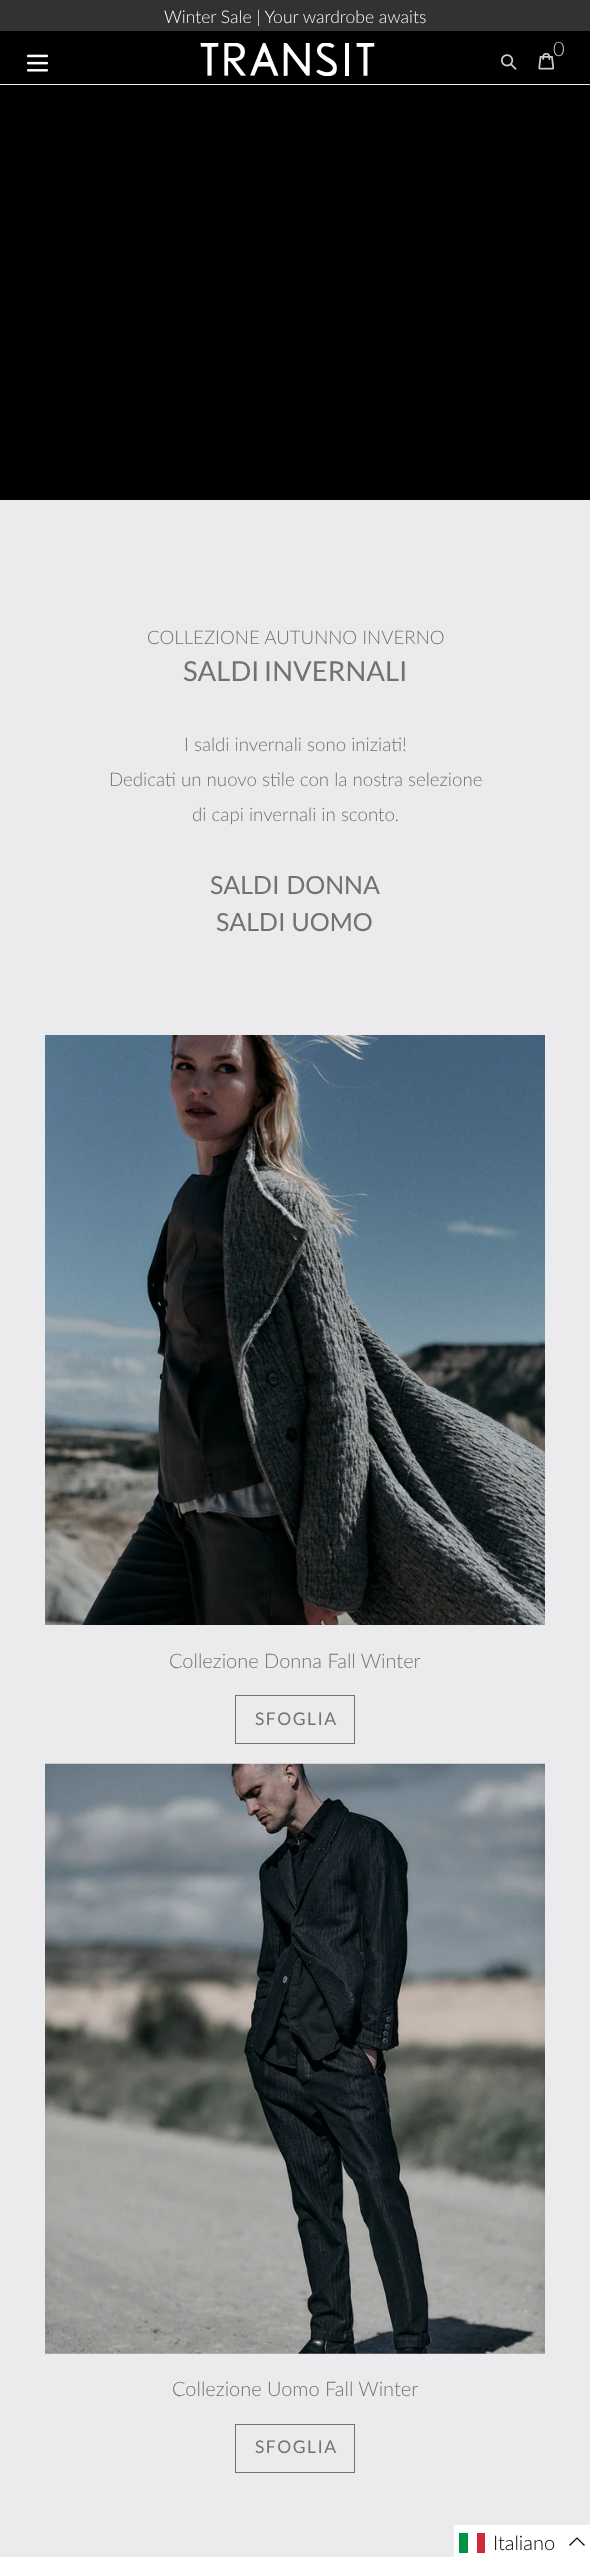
(async () => {
  const canvas = document.querySelector("canvas");
  canvas.width = 590;
  canvas.height = 2557;
  const ctx = canvas.getContext("2d");
  ctx.miterLimit = 4;
  ctx.fontKerning = "normal";
  async function loadImage(src) {
    const img = new Image();
    img.src = src;
    await img.decode();
    return img;
  }
  let path;

  ctx.fillStyle = "#ebebed";
  ctx.fillRect(0, 0, 590, 2557);
  for (const [x, y, w, h, color] of [
    [0, 31, 590, 469, "#000000"],
    [0, 84, 590, 1, "#ebebed"],
    [0, 0, 590, 31, "#333232"],
  ]) {
    ctx.fillStyle = color;
    ctx.fillRect(x, y, w, h);
  }
  ctx.drawImage(await loadImage("img/1.png"), 26, 54, 23, 18);
  ctx.drawImage(await loadImage("img/2.png"), 200, 43, 175, 33);
  ctx.drawImage(await loadImage("img/3.png"), 538, 53, 17, 17);
  ctx.drawImage(await loadImage("img/4.png"), 501, 54, 16, 16);
  ctx.drawImage(await loadImage("img/5.png"), 45, 1035, 500, 590);
  ctx.strokeStyle = "#707372";
  ctx.strokeRect(235.5, 1695.5, 119, 48);
  ctx.drawImage(await loadImage("img/6.png"), 45, 1763, 500, 591);
  ctx.strokeRect(235.5, 2424.5, 119, 48);
  for (const [x, y, w, h, color] of [
    [454, 2525, 136, 32, "#ffffff"],
    [459, 2533, 9, 20, "#009246"],
    [477, 2533, 8, 20, "#ce2b37"],
  ]) {
    ctx.fillStyle = color;
    ctx.fillRect(x, y, w, h);
  }
  path = new Path2D("M584.5 2545.5L577 2538L569.5 2545.5");
  ctx.strokeStyle = "#000000";
  ctx.lineWidth = 1.2;
  ctx.stroke(path);
  ctx.font = "300 17.5px Lato";
  ctx.fillStyle = "#fafafa";
  ctx.fillText("Winter Sale | Your wardrobe awaits", 164, 23);
  ctx.font = "300 20px Lato";
  ctx.fillStyle = "#cccccc";
  ctx.fillText("0", 553, 56);
  ctx.font = "300 18.7px Lato";
  ctx.fillStyle = "#707372";
  ctx.fillText("COLLEZIONE AUTUNNO INVERNO", 147, 644);
  ctx.wordSpacing = "-1px";
  ctx.font = "27.5px Lato";
  ctx.fillText("SALDI INVERNALI", 183, 681);
  ctx.wordSpacing = "0px";
  ctx.font = "300 18.7px Lato";
  for (const [text, x, y] of [
    ["I saldi invernali sono iniziati!", 184, 751],
    ["Dedicati un nuovo stile con la nostra selezione", 109, 786],
    ["di capi invernali in sconto.", 192, 821],
  ]) {
    ctx.fillText(text, x, y);
  }
  ctx.wordSpacing = "2px";
  ctx.font = "25px Lato";
  ctx.fillText("SALDI DONNA", 210, 894);
  ctx.wordSpacing = "1px";
  ctx.fillText("SALDI UOMO", 216, 931);
  ctx.wordSpacing = "0px";
  ctx.font = "300 20px Lato";
  ctx.fillText("Collezione Donna Fall Winter", 169, 1668);
  ctx.letterSpacing = "1.5px";
  ctx.font = "17.5px Lato";
  ctx.fillText("SFOGLIA", 255, 1725);
  ctx.letterSpacing = "0px";
  ctx.font = "300 20px Lato";
  ctx.fillText("Collezione Uomo Fall Winter", 172, 2396);
  ctx.letterSpacing = "1.5px";
  ctx.font = "17.5px Lato";
  ctx.fillText("SFOGLIA", 255, 2453);
  ctx.letterSpacing = "0px";
  ctx.font = "300 20px Lato";
  ctx.fillStyle = "#000000";
  ctx.fillText("Italiano", 493, 2550);
})();
